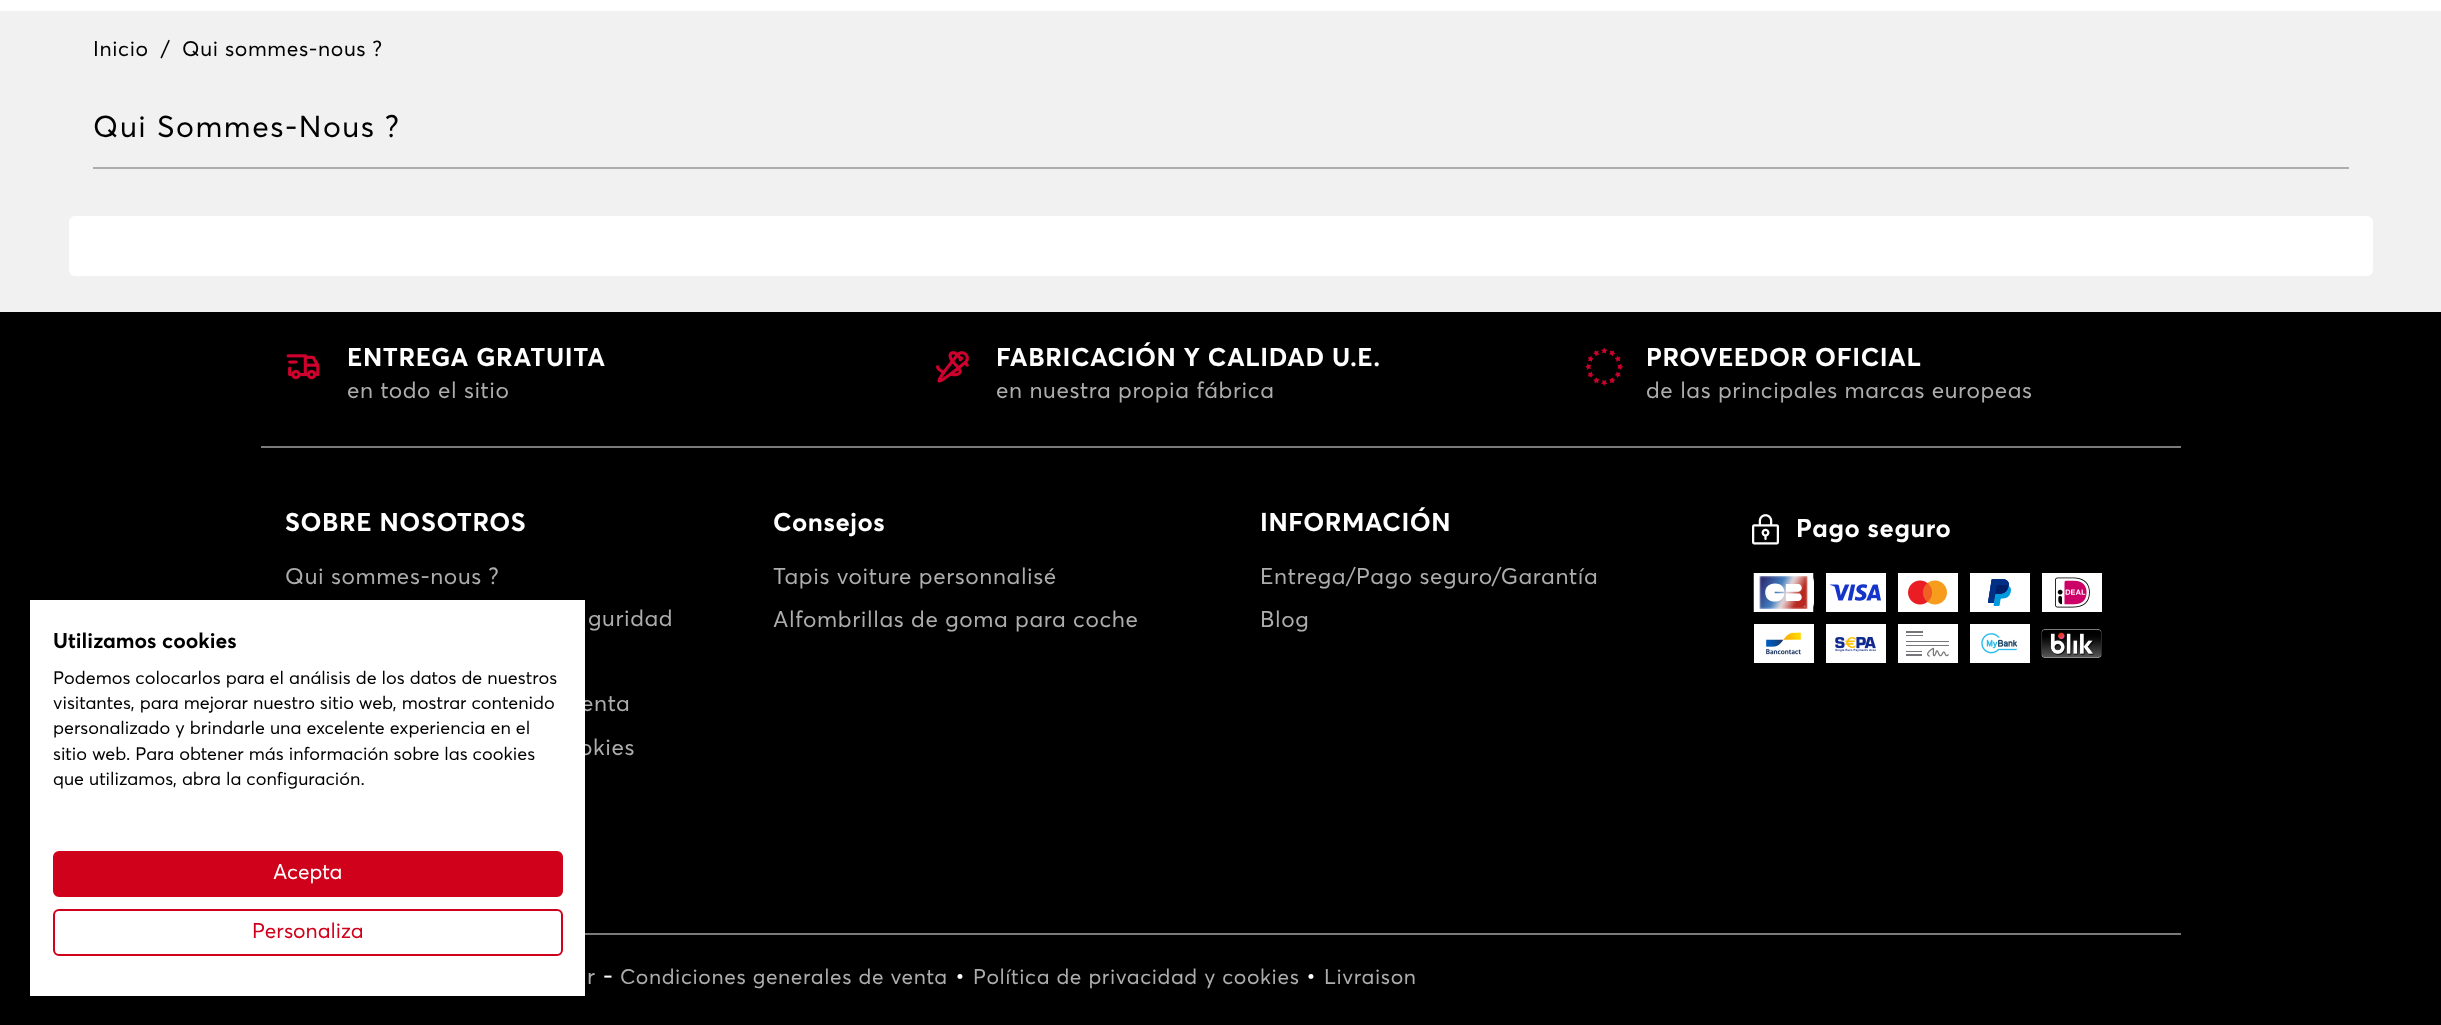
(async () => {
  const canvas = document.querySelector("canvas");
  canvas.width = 2441;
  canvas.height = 1025;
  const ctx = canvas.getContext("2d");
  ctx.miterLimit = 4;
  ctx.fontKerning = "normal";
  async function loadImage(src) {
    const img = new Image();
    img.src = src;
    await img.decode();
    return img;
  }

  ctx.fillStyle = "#f1f1f1";
  ctx.fillRect(0, 0, 2441, 1025);
  ctx.fillStyle = "#ffffff";
  ctx.fillRect(0, 0, 2441, 11);
  ctx.fillStyle = "#adadad";
  ctx.fillRect(93, 167, 2256, 2);
  ctx.fillStyle = "#ffffff";
  ctx.beginPath();
  ctx.roundRect(69, 216, 2304, 60, 6);
  ctx.fill();
  ctx.fillStyle = "#000000";
  ctx.fillRect(0, 312, 2441, 713);
  ctx.drawImage(await loadImage("img/1.png"), 286, 354, 34, 26);
  ctx.drawImage(await loadImage("img/2.png"), 936, 351, 33, 32);
  ctx.drawImage(await loadImage("img/3.png"), 1586, 348, 37, 38);
  ctx.fillStyle = "#7a7a7a";
  ctx.fillRect(261, 446, 1920, 2);
  ctx.drawImage(await loadImage("img/4.png"), 1752, 514, 27, 31);
  ctx.fillStyle = "#ffffff";
  ctx.beginPath();
  ctx.roundRect(1754, 573, 60, 39, 9);
  ctx.fill();
  ctx.drawImage(await loadImage("img/5.png"), 1753, 573, 61, 39);
  ctx.drawImage(await loadImage("img/6.png"), 1826, 573, 60, 39);
  ctx.drawImage(await loadImage("img/7.png"), 1898, 573, 60, 39);
  ctx.drawImage(await loadImage("img/8.png"), 1970, 573, 60, 39);
  ctx.drawImage(await loadImage("img/9.png"), 2042, 573, 60, 39);
  ctx.fillRect(1754, 624, 60, 39);
  ctx.drawImage(await loadImage("img/10.png"), 1766, 632, 35, 23);
  ctx.fillRect(1826, 624, 60, 39);
  ctx.drawImage(await loadImage("img/11.png"), 1835, 637, 41, 15);
  ctx.fillRect(1898, 624, 60, 39);
  ctx.drawImage(await loadImage("img/12.png"), 1906, 631, 43, 26);
  ctx.fillRect(1970, 624, 60, 39);
  ctx.drawImage(await loadImage("img/13.png"), 1981, 633, 37, 21);
  ctx.drawImage(await loadImage("img/14.png"), 2041, 629, 61, 29);
  ctx.fillStyle = "#7a7a7a";
  ctx.fillRect(585, 933, 1596, 2);
  ctx.letterSpacing = "0.6px";
  ctx.font = "21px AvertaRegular";
  ctx.fillStyle = "#000000";
  for (const [text, x, y] of [
    ["Inicio", 93, 56],
    ["/", 161, 56],
    ["Qui sommes-nous ?", 182, 56],
  ]) {
    ctx.fillText(text, x, y);
  }
  ctx.letterSpacing = "1.5px";
  ctx.font = "30px AvertaRegular";
  ctx.fillText("Qui Sommes-Nous ?", 93, 137);
  ctx.letterSpacing = "0.6px";
  ctx.font = "bold 25.5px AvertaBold";
  ctx.fillStyle = "#ffffff";
  ctx.fillText("ENTREGA GRATUITA", 347, 366);
  ctx.font = "22.5px AvertaRegular";
  ctx.fillStyle = "#adadad";
  ctx.fillText("en todo el sitio", 347, 398);
  ctx.font = "bold 25.5px AvertaBold";
  ctx.fillStyle = "#ffffff";
  ctx.fillText("FABRICACIÓN Y CALIDAD U.E.", 996, 366);
  ctx.font = "22.5px AvertaRegular";
  ctx.fillStyle = "#adadad";
  ctx.fillText("en nuestra propia fábrica", 996, 398);
  ctx.font = "bold 25.5px AvertaBold";
  ctx.fillStyle = "#ffffff";
  ctx.fillText("PROVEEDOR OFICIAL", 1646, 366);
  ctx.font = "22.5px AvertaRegular";
  ctx.fillStyle = "#adadad";
  ctx.fillText("de las principales marcas europeas", 1646, 398);
  ctx.font = "bold 25.5px AvertaBold";
  ctx.fillStyle = "#ffffff";
  ctx.fillText("SOBRE NOSOTROS", 285, 531);
  ctx.font = "22.5px AvertaRegular";
  ctx.fillStyle = "#adadad";
  for (const [text, x, y] of [
    ["Qui sommes-nous ?", 285, 584],
    ["guridad", 588, 626],
    ["enta", 581, 711],
    ["okies", 579, 755],
  ]) {
    ctx.fillText(text, x, y);
  }
  ctx.font = "bold 25.5px AvertaBold";
  ctx.fillStyle = "#ffffff";
  ctx.fillText("Consejos", 773, 531);
  ctx.font = "22.5px AvertaRegular";
  ctx.fillStyle = "#adadad";
  ctx.fillText("Tapis voiture personnalisé", 773, 584);
  ctx.fillText("Alfombrillas de goma para coche", 773, 627);
  ctx.font = "bold 25.5px AvertaBold";
  ctx.fillStyle = "#ffffff";
  ctx.fillText("INFORMACIÓN", 1260, 531);
  ctx.font = "22.5px AvertaRegular";
  ctx.fillStyle = "#adadad";
  ctx.fillText("Entrega/Pago seguro/Garantía", 1260, 584);
  ctx.fillText("Blog", 1260, 627);
  ctx.font = "bold 25.5px AvertaBold";
  ctx.fillStyle = "#ffffff";
  ctx.fillText("Pago seguro", 1796, 537);
  ctx.font = "22.5px AvertaRegular";
  ctx.fillStyle = "#adadad";
  ctx.fillText("r", 587, 984);
  ctx.font = "24px AvertaRegular";
  ctx.fillStyle = "#ffffff";
  ctx.fillText("-", 603, 984);
  ctx.font = "21px AvertaRegular";
  ctx.fillStyle = "#adadad";
  ctx.fillText("Condiciones generales de venta", 620, 984);
  ctx.font = "24px AvertaRegular";
  ctx.fillStyle = "#ffffff";
  ctx.fillText("•", 955, 984);
  ctx.font = "21px AvertaRegular";
  ctx.fillStyle = "#adadad";
  ctx.fillText("Política de privacidad y cookies", 973, 984);
  ctx.font = "24px AvertaRegular";
  ctx.fillStyle = "#ffffff";
  ctx.fillText("•", 1306, 984);
  ctx.font = "21px AvertaRegular";
  ctx.fillStyle = "#adadad";
  ctx.fillText("Livraison", 1324, 984);
  ctx.fillStyle = "#ffffff";
  ctx.fillRect(30, 600, 555, 396);
  ctx.letterSpacing = "0px";
  ctx.font = "bold 21px AvertaBold";
  ctx.fillStyle = "#000000";
  ctx.fillText("Utilizamos cookies", 53, 648);
  ctx.font = "18px AvertaRegular";
  for (const [text, x, y] of [
    ["Podemos colocarlos para el análisis de los datos de nuestros", 53, 684],
    ["visitantes, para mejorar nuestro sitio web, mostrar contenido", 53, 709],
    ["personalizado y brindarle una excelente experiencia en el", 53, 734],
    ["sitio web. Para obtener más información sobre las cookies", 53, 760],
    ["que utilizamos, abra la configuración.", 53, 785],
  ]) {
    ctx.fillText(text, x, y);
  }
  ctx.fillStyle = "#d0021b";
  ctx.beginPath();
  ctx.roundRect(54, 852, 508, 44, 5);
  ctx.fill();
  ctx.strokeStyle = "#d0021b";
  ctx.lineWidth = 2;
  ctx.stroke();
  ctx.font = "21px AvertaRegular";
  ctx.fillStyle = "#ffffff";
  ctx.fillText("Acepta", 273, 879);
  ctx.beginPath();
  ctx.roundRect(54, 910, 508, 45, 5);
  ctx.stroke();
  ctx.fillStyle = "#d0021b";
  ctx.fillText("Personaliza", 252, 938);
})();
